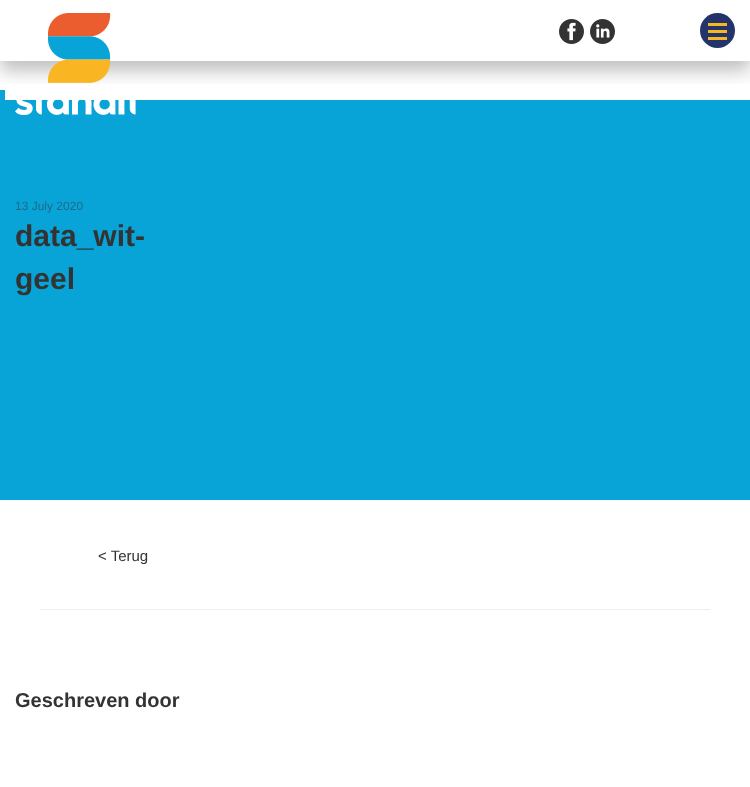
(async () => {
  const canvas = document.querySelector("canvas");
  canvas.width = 750;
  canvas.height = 787;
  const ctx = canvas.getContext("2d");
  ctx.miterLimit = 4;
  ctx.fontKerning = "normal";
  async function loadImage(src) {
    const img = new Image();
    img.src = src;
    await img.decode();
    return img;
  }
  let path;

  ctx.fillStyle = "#ffffff";
  ctx.fillRect(0, 0, 750, 787);
  ctx.save();
  ctx.beginPath();
  ctx.rect(0, 90, 5, 410);
  ctx.clip();
  ctx.fillStyle = "#08a3d7";
  path = new Path2D("M354-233C688-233 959 37 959 371C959 705 688 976 354 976C21 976-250 705-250 371C-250 37 21-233 354-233Z");
  ctx.fill(path, "evenodd");
  ctx.restore();
  ctx.save();
  ctx.beginPath();
  ctx.rect(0, 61, 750, 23);
  ctx.clip();
  ctx.fillStyle = "rgba(0, 0, 0, 0.25)";
  ctx.filter = "blur(9px)";
  ctx.beginPath();
  ctx.rect(0, 10, 750, 61);
  ctx.fill();
  ctx.filter = "none";
  ctx.restore();
  ctx.fillStyle = "#08a3d7";
  ctx.fillRect(5, 100, 745, 400);
  ctx.drawImage(await loadImage("img/1.png"), 15, 13, 121, 102);
  ctx.drawImage(await loadImage("img/2.png"), 559, 19, 25, 25);
  ctx.drawImage(await loadImage("img/3.png"), 590, 19, 25, 25);
  ctx.fillStyle = "#23346b";
  ctx.beginPath();
  ctx.arc(717.5, 30.5, 17.5, 0, Math.PI * 2);
  ctx.fill();
  for (const [x, y, w, h, color] of [
    [708, 23, 19, 3, "#fab523"],
    [708, 30, 19, 3, "#fab523"],
    [708, 37, 19, 3, "#fab523"],
    [40, 579, 1, 1, "#fffdfa"],
    [40, 609, 670, 1, "#eeeeee"],
  ]) {
    ctx.fillStyle = color;
    ctx.fillRect(x, y, w, h);
  }
  ctx.font = "12px Liberation Sans";
  ctx.fillStyle = "#1e6b85";
  ctx.fillText("13 July 2020", 15, 210);
  ctx.font = "bold 30px Liberation Sans";
  ctx.fillStyle = "#333333";
  ctx.fillText("data_wit-", 15, 246);
  ctx.fillText("geel", 15, 289);
  ctx.font = "15px Liberation Sans";
  ctx.fillText("< Terug", 98, 561);
  ctx.font = "bold 20px Liberation Sans";
  ctx.fillText("Geschreven door", 15, 707);
})();
